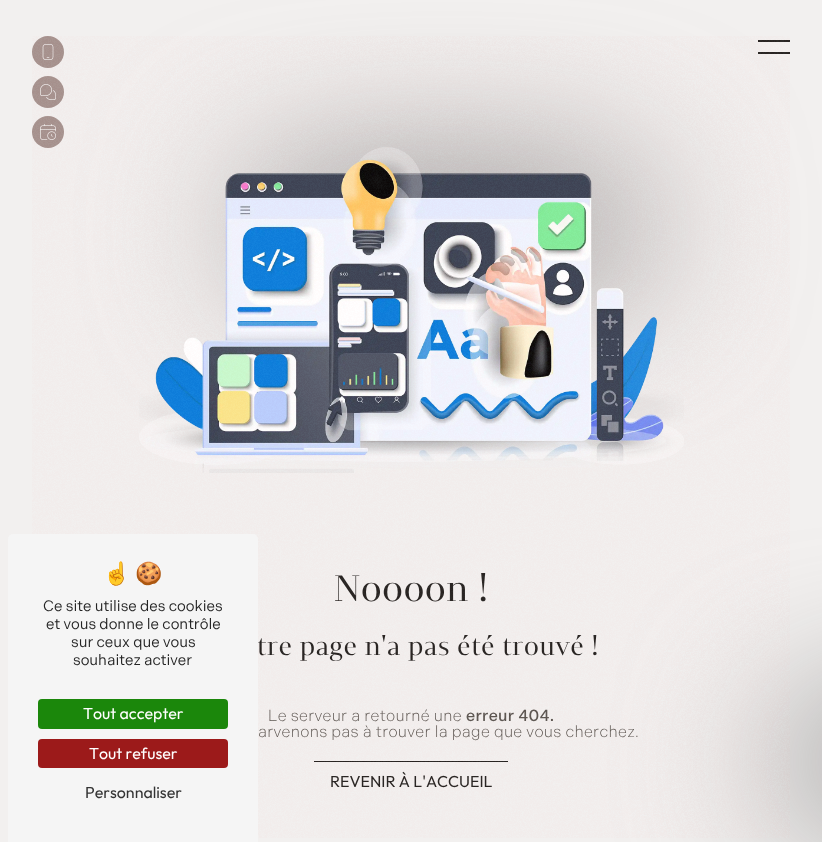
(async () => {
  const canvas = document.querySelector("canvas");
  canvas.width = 822;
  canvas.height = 842;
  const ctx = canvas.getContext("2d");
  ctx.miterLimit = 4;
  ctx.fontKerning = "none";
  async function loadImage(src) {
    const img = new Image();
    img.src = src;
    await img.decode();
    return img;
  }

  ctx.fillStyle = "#f2f0ef";
  ctx.fillRect(0, 0, 822, 842);
  ctx.fillStyle = "#797878";
  ctx.filter = "blur(80px)";
  ctx.beginPath();
  ctx.roundRect(247, 178, 400, 100, 50);
  ctx.fill();
  ctx.filter = "none";
  ctx.fillStyle = "#a3908c";
  ctx.beginPath();
  ctx.arc(48, 52, 16, 0, Math.PI * 2);
  ctx.fill();
  ctx.drawImage(await loadImage("img/1.png"), 42, 44, 12, 16);
  ctx.beginPath();
  ctx.arc(48, 92, 16, 0, Math.PI * 2);
  ctx.fill();
  ctx.drawImage(await loadImage("img/2.png"), 40, 84, 16, 16);
  ctx.beginPath();
  ctx.arc(48, 132, 16, 0, Math.PI * 2);
  ctx.fill();
  ctx.drawImage(await loadImage("img/3.png"), 40, 124, 16, 16);
  ctx.fillStyle = "#201e1c";
  ctx.fillRect(758, 40, 32, 2);
  ctx.fillRect(758, 52, 32, 2);
  ctx.fillStyle = "#797878";
  ctx.filter = "blur(80px)";
  ctx.beginPath();
  ctx.roundRect(781, 712, 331, 100, 50);
  ctx.fill();
  ctx.filter = "none";
  ctx.drawImage(await loadImage("img/5.png"), 139, 147, 545, 326);
  ctx.fillStyle = "#201e1c";
  ctx.fillRect(314, 761, 194, 1);
  ctx.letterSpacing = "0.8px";
  ctx.font = "40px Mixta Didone";
  ctx.fillText("Noooon !", 334, 601);
  ctx.font = "28.75px Mixta Didone";
  ctx.fillText("tre page n'a pas été trouvé !", 257, 655);
  ctx.letterSpacing = "0.3px";
  ctx.font = "300 16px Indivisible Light";
  ctx.fillStyle = "#56514c";
  ctx.fillText("Le serveur a retourné une", 268, 721);
  ctx.font = "500 16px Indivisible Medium";
  ctx.fillText("erreur 404.", 466, 721);
  ctx.font = "300 16px Indivisible Light";
  ctx.fillText("arvenons pas à trouver la page que vous cherchez.", 258, 737);
  ctx.letterSpacing = "0px";
  ctx.font = "16px Outfit";
  ctx.fillStyle = "#201e1c";
  ctx.fillText("REVENIR À L'ACCUEIL", 330, 787);
  ctx.drawImage(await loadImage("img/4.png"), 32, 36, 758, 802);
  ctx.fillStyle = "#f5f5f5";
  ctx.beginPath();
  ctx.roundRect(8, 534, 250, 308, [5, 5, 0, 0]);
  ctx.fill();
  ctx.font = "15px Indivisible";
  ctx.fillStyle = "#242424";
  for (const [text, x, y] of [
    ["souhaitez activer", 73, 665],
    ["sur ceux que vous", 71, 647],
    ["et vous donne le contrôle", 46, 629],
    ["Ce site utilise des cookies", 43, 611],
  ]) {
    ctx.fillText(text, x, y);
  }
  ctx.font = "16px Outfit";
  ctx.fillStyle = "#333333";
  ctx.fillText("Personnaliser", 85, 798);
  ctx.fillStyle = "#9c1a1a";
  ctx.beginPath();
  ctx.roundRect(38, 739, 190, 29, 4);
  ctx.fill();
  ctx.fillStyle = "#ffffff";
  ctx.fillText("Tout refuser", 89, 759);
  ctx.fillStyle = "#1b870b";
  ctx.beginPath();
  ctx.roundRect(38, 699, 190, 30, 4);
  ctx.fill();
  ctx.fillStyle = "#ffffff";
  ctx.fillText("Tout accepter", 83, 719);
  ctx.font = "22px Noto Color Emoji";
  ctx.fillStyle = "#242424";
  ctx.fillText("🍪", 135, 581);
  ctx.fillText("☝", 103, 581);
})();
